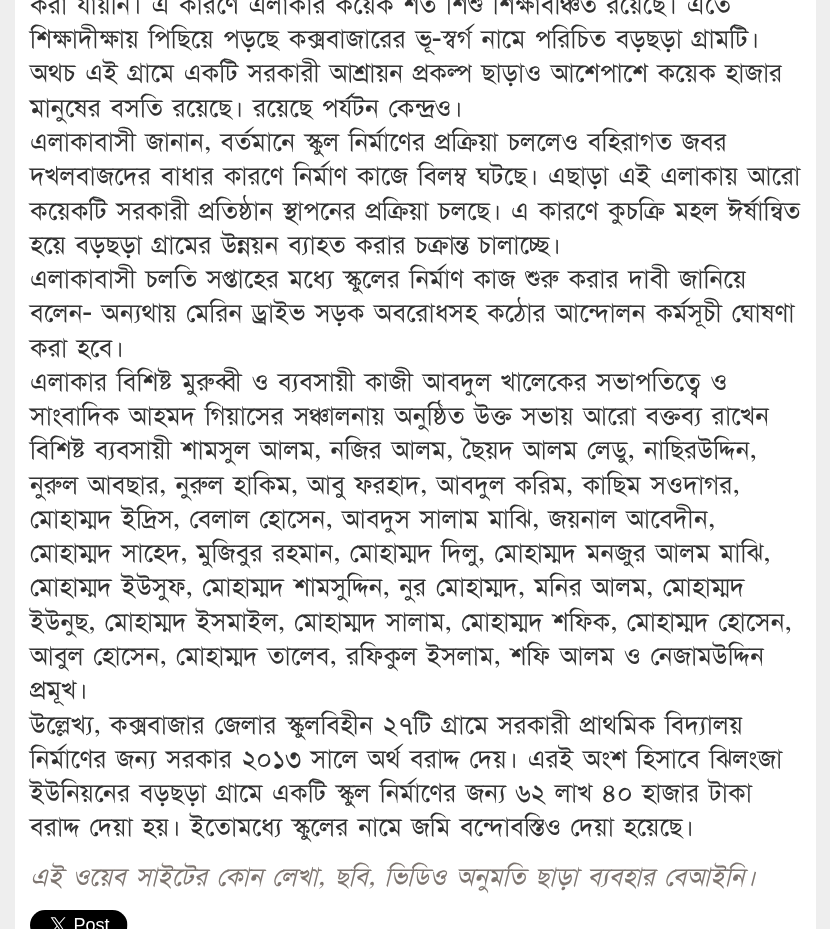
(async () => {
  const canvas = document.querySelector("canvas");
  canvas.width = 830;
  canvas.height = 929;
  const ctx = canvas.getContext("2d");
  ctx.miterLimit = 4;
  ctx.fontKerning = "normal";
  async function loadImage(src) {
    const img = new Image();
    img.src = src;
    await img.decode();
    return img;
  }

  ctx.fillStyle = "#eeeeee";
  ctx.fillRect(0, 0, 830, 929);
  ctx.fillStyle = "#ffffff";
  ctx.fillRect(15, 0, 801, 929);
  ctx.drawImage(await loadImage("img/1.png"), 30, 910, 98, 19);
  ctx.font = "500 24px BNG";
  ctx.fillStyle = "#333333";
  for (const [text, x, y] of [
    ["করা যায়নি। এ কারণে এলাকার কয়েক শত শিশু শিক্ষাবঞ্চিত রয়েছে। এতে", 30, 13],
    ["শিক্ষাদীক্ষায় পিছিয়ে পড়ছে কক্সবাজারের ভূ-স্বর্গ নামে পরিচিত বড়ছড়া গ্রামটি।", 30, 47],
    ["অথচ এই গ্রামে একটি সরকারী আশ্রায়ন প্রকল্প ছাড়াও আশেপাশে কয়েক হাজার", 30, 81],
    ["মানুষের বসতি রয়েছে। রয়েছে পর্যটন কেন্দ্রও।", 30, 116],
    ["এলাকাবাসী জানান, বর্তমানে স্কুল নির্মাণের প্রক্রিয়া চললেও বহিরাগত জবর", 30, 150],
    ["দখলবাজদের বাধার কারণে নির্মাণ কাজে বিলম্ব ঘটছে। এছাড়া এই এলাকায় আরো", 30, 184],
    ["কয়েকটি সরকারী প্রতিষ্ঠান স্থাপনের প্রক্রিয়া চলছে। এ কারণে কুচক্রি মহল ঈর্ষান্বিত", 30, 219],
    ["হয়ে বড়ছড়া গ্রামের উন্নয়ন ব্যাহত করার চক্রান্ত চালাচ্ছে।", 30, 253],
    ["এলাকাবাসী চলতি সপ্তাহের মধ্যে স্কুলের নির্মাণ কাজ শুরু করার দাবী জানিয়ে", 30, 287],
    ["বলেন- অন্যথায় মেরিন ড্রাইভ সড়ক অবরোধসহ কঠোর আন্দোলন কর্মসূচী ঘোষণা", 30, 321],
    ["করা হবে।", 30, 356],
    ["এলাকার বিশিষ্ট মুরুব্বী ও ব্যবসায়ী কাজী আবদুল খালেকের সভাপতিত্বে ও", 30, 390],
    ["সাংবাদিক আহমদ গিয়াসের সঞ্চালনায় অনুষ্ঠিত উক্ত সভায় আরো বক্তব্য রাখেন", 30, 424],
    ["বিশিষ্ট ব্যবসায়ী শামসুল আলম, নজির আলম, ছৈয়দ আলম লেডু, নাছিরউদ্দিন,", 30, 458],
    ["নুরুল আবছার, নুরুল হাকিম, আবু ফরহাদ, আবদুল করিম, কাছিম সওদাগর,", 30, 493],
    ["মোহাম্মদ ইদ্রিস, বেলাল হোসেন, আবদুস সালাম মাঝি, জয়নাল আবেদীন,", 30, 527],
    ["মোহাম্মদ সাহেদ, মুজিবুর রহমান, মোহাম্মদ দিলু, মোহাম্মদ মনজুর আলম মাঝি,", 30, 561],
    ["মোহাম্মদ ইউসুফ, মোহাম্মদ শামসুদ্দিন, নুর মোহাম্মদ, মনির আলম, মোহাম্মদ", 30, 595],
    ["ইউনুছ, মোহাম্মদ ইসমাইল, মোহাম্মদ সালাম, মোহাম্মদ শফিক, মোহাম্মদ হোসেন,", 30, 630],
    ["আবুল হোসেন, মোহাম্মদ তালেব, রফিকুল ইসলাম, শফি আলম ও নেজামউদ্দিন", 30, 664],
    ["প্রমূখ।", 30, 698],
    ["উল্লেখ্য, কক্সবাজার জেলার স্কুলবিহীন ২৭টি গ্রামে সরকারী প্রাথমিক বিদ্যালয়", 30, 733],
    ["নির্মাণের জন্য সরকার ২০১৩ সালে অর্থ বরাদ্দ দেয়। এরই অংশ হিসাবে ঝিলংজা", 30, 767],
    ["ইউনিয়নের বড়ছড়া গ্রামে একটি স্কুল নির্মাণের জন্য ৬২ লাখ ৪০ হাজার টাকা", 30, 801],
    ["বরাদ্দ দেয়া হয়। ইতোমধ্যে স্কুলের নামে জমি বন্দোবস্তিও দেয়া হয়েছে।", 30, 835],
  ]) {
    ctx.fillText(text, x, y);
  }
  ctx.font = "italic 500 24px BNG";
  ctx.fillStyle = "#7e7671";
  ctx.fillText("এই ওয়েব সাইটের কোন লেখা, ছবি, ভিডিও অনুমতি ছাড়া ব্যবহার বেআইনি।", 30, 885);
})();
